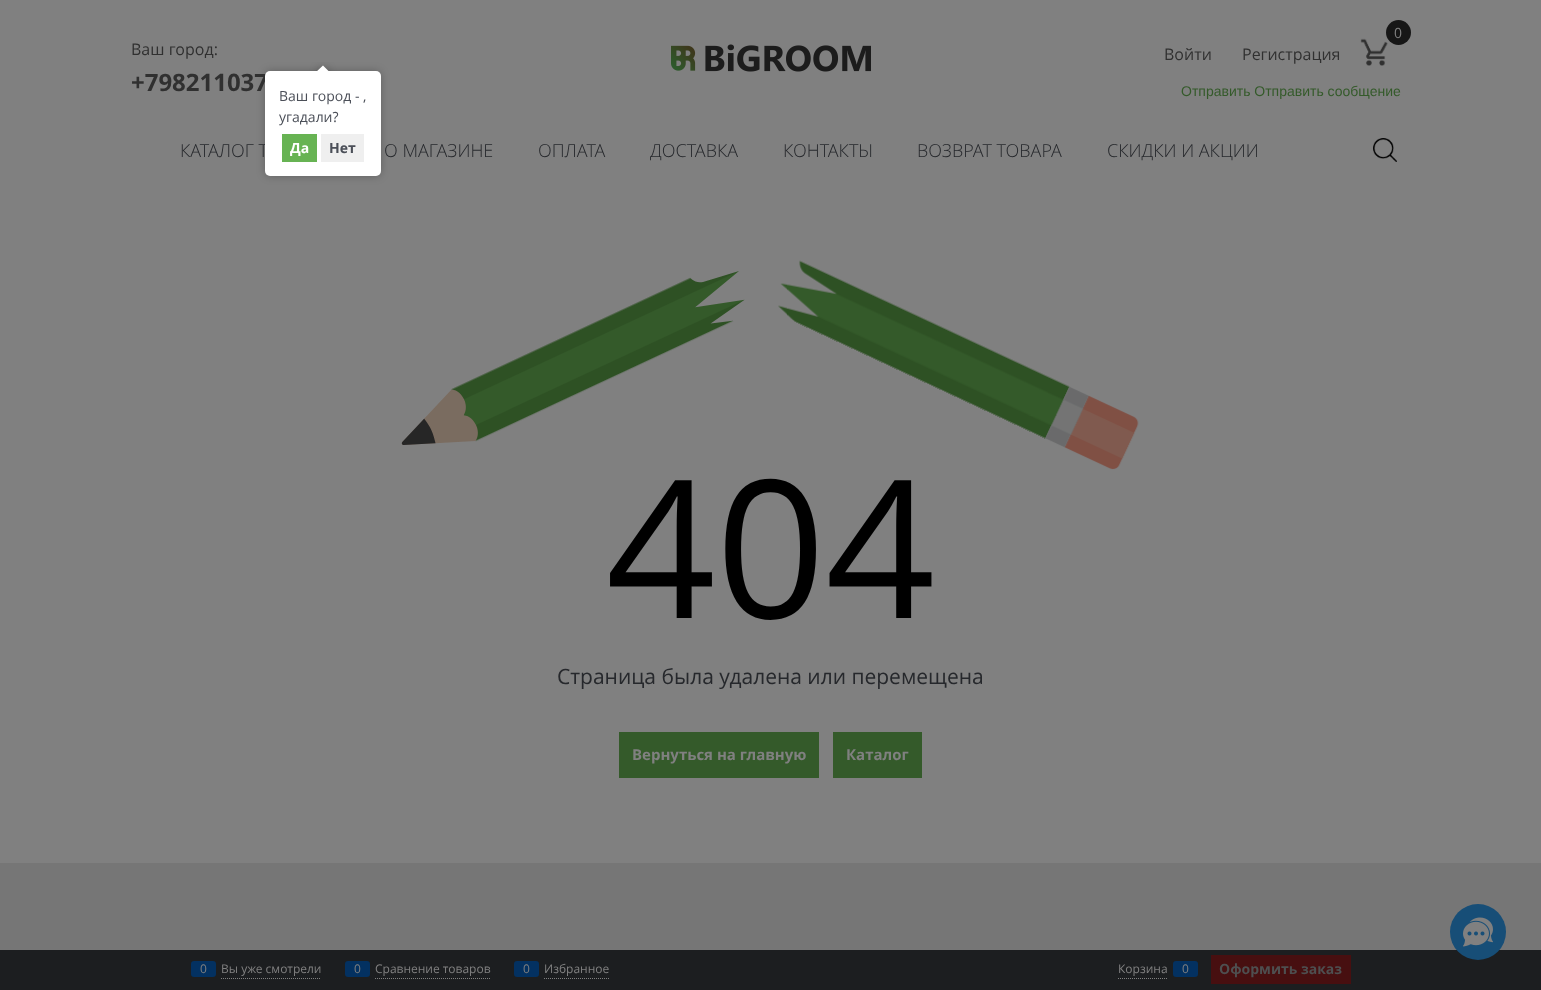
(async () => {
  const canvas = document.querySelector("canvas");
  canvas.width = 1541;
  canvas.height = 990;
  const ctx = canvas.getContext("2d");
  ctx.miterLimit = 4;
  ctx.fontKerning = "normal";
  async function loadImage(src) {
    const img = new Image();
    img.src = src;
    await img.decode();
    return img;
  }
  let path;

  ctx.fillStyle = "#808080";
  ctx.fillRect(0, 0, 1541, 990);
  ctx.drawImage(await loadImage("img/1.png"), 671, 44, 200, 28);
  ctx.drawImage(await loadImage("img/2.png"), 1360, 38, 28, 28);
  ctx.fillStyle = "#161616";
  ctx.beginPath();
  ctx.arc(1398.5, 32.5, 12.5, 0, Math.PI * 2);
  ctx.fill();
  ctx.drawImage(await loadImage("img/3.png"), 1373, 138, 24, 24);
  ctx.drawImage(await loadImage("img/4.png"), 401, 260, 738, 210);
  for (const [x, y, w, h, color] of [
    [619, 732, 200, 46, "#345a2a"],
    [833, 732, 89, 46, "#345a2a"],
    [0, 863, 1541, 87, "#767676"],
    [0, 950, 1541, 40, "#1c1e20"],
  ]) {
    ctx.fillStyle = color;
    ctx.fillRect(x, y, w, h);
  }
  path = new Path2D("M221 978.5H321");
  ctx.strokeStyle = "#808080";
  ctx.setLineDash([1, 1]);
  ctx.stroke(path);
  ctx.fillStyle = "#033161";
  ctx.beginPath();
  ctx.roundRect(191, 961, 25, 16, 3);
  ctx.fill();
  path = new Path2D("M375 978.5H490");
  ctx.stroke(path);
  ctx.beginPath();
  ctx.roundRect(345, 961, 25, 16, 3);
  ctx.fill();
  path = new Path2D("M544 978.5H609");
  ctx.stroke(path);
  ctx.beginPath();
  ctx.roundRect(514, 961, 25, 16, 3);
  ctx.fill();
  path = new Path2D("M1118 978.5H1168");
  ctx.stroke(path);
  ctx.beginPath();
  ctx.roundRect(1173, 961, 25, 16, 3);
  ctx.fill();
  ctx.fillStyle = "#470f10";
  ctx.fillRect(1211, 955, 140, 29);
  ctx.fillStyle = "rgba(0, 0, 0, 0.25)";
  ctx.filter = "blur(4.5px)";
  ctx.beginPath();
  ctx.roundRect(265, 71, 116, 105, 5);
  ctx.fill();
  ctx.filter = "none";
  ctx.fillStyle = "#174e77";
  ctx.beginPath();
  ctx.arc(1478, 932, 28, 0, Math.PI * 2);
  ctx.fill();
  ctx.drawImage(await loadImage("img/5.png"), 1463, 917, 30, 30);
  ctx.font = "16px Open Sans";
  ctx.fillStyle = "#303030";
  ctx.fillText("Ваш город:", 131, 55);
  ctx.font = "bold 24px Open Sans";
  ctx.fillText("+798211037", 131, 91);
  ctx.font = "14px Open Sans";
  ctx.fillStyle = "#808080";
  ctx.fillText("0", 1394, 38);
  ctx.font = "16px Open Sans";
  ctx.fillStyle = "#303030";
  ctx.fillText("Войти", 1164, 60);
  ctx.fillText("Регистрация", 1242, 60);
  ctx.font = "14px Liberation Sans";
  ctx.fillStyle = "#345a2a";
  ctx.fillText("Отправить Отправить сообщение", 1181, 96);
  ctx.font = "300 18px Open Sans";
  ctx.fillStyle = "#26282c";
  for (const [text, x, y] of [
    ["КАТАЛОГ Т", 180, 157],
    ["О МАГАЗИНЕ", 384, 157],
    ["ОПЛАТА", 538, 157],
    ["ДОСТАВКА", 650, 157],
    ["КОНТАКТЫ", 783, 157],
    ["ВОЗВРАТ ТОВАРА", 917, 157],
    ["СКИДКИ И АКЦИИ", 1107, 157],
  ]) {
    ctx.fillText(text, x, y);
  }
  ctx.font = "192px Open Sans";
  ctx.fillStyle = "#000000";
  ctx.fillText("404", 606, 618);
  ctx.font = "21px Open Sans";
  ctx.fillStyle = "#26282c";
  ctx.fillText("Страница была удалена или перемещена", 557, 684);
  ctx.font = "bold 15px Open Sans";
  ctx.fillStyle = "#808080";
  ctx.fillText("Вернуться на главную", 632, 760);
  ctx.fillText("Каталог", 846, 760);
  ctx.font = "12px Open Sans";
  for (const [text, x, y] of [
    ["0", 200, 973],
    ["Вы уже смотрели", 221, 973],
    ["0", 354, 973],
    ["Сравнение товаров", 375, 973],
    ["0", 523, 973],
    ["Избранное", 544, 973],
    ["Корзина", 1118, 973],
    ["0", 1182, 973],
  ]) {
    ctx.fillText(text, x, y);
  }
  ctx.font = "bold 14px Open Sans";
  ctx.fillStyle = "#4e4f50";
  ctx.fillText("Оформить заказ", 1219, 974);
  ctx.fillStyle = "#ffffff";
  ctx.beginPath();
  ctx.roundRect(265, 71, 116, 105, 5);
  ctx.fill();
  ctx.save();
  ctx.beginPath();
  ctx.rect(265, 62, 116, 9);
  ctx.clip();
  ctx.fillStyle = "rgba(0, 0, 0, 0.25)";
  ctx.filter = "blur(4.5px)";
  ctx.beginPath();
  ctx.rect(318, 68, 10, 10);
  ctx.fill();
  ctx.filter = "none";
  ctx.restore();
  ctx.save();
  ctx.beginPath();
  ctx.rect(265, 62, 116, 9);
  ctx.clip();
  path = new Path2D("M323 65.5L330 72.5L323 79.5L315.5 72.5Z");
  ctx.fill(path);
  ctx.restore();
  ctx.font = "14px Open Sans";
  ctx.fillStyle = "#4b4f58";
  ctx.fillText("Ваш город - ,", 279, 101);
  ctx.fillText("угадали?", 279, 122);
  ctx.fillStyle = "#67b353";
  ctx.fillRect(282, 134, 35, 28);
  ctx.font = "bold 14px Open Sans";
  ctx.fillStyle = "#ffffff";
  ctx.fillText("Да", 290, 153);
  ctx.fillStyle = "#efefef";
  ctx.fillRect(321, 134, 43, 28);
  ctx.fillStyle = "#4b4f58";
  ctx.fillText("Нет", 329, 153);
})();
